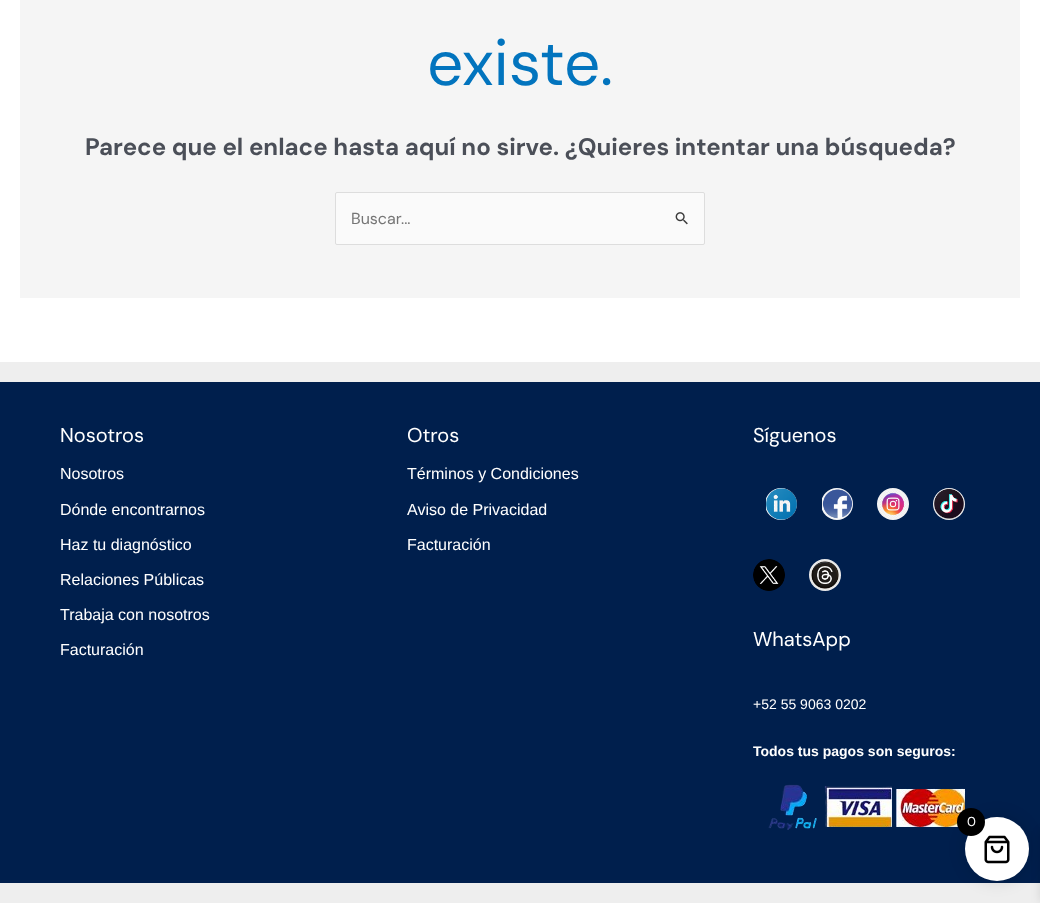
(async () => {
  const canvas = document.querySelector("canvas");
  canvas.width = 1040;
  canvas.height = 903;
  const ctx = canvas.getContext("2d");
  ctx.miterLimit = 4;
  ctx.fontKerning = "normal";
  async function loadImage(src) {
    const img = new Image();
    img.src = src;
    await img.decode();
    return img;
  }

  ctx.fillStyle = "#ffffff";
  ctx.fillRect(0, 0, 1040, 903);
  ctx.fillStyle = "#f5f5f5";
  ctx.fillRect(20, 0, 1000, 298);
  ctx.fillStyle = "#fafafa";
  ctx.beginPath();
  ctx.roundRect(335.5, 192.5, 369, 52, 1.5);
  ctx.fill();
  ctx.strokeStyle = "#dddddd";
  ctx.stroke();
  ctx.drawImage(await loadImage("img/1.png"), 675, 212, 13, 13);
  ctx.fillStyle = "#eeeeee";
  ctx.fillRect(0, 362, 1040, 541);
  ctx.fillStyle = "#001f4d";
  ctx.fillRect(0, 382, 1040, 501);
  ctx.drawImage(await loadImage("img/2.png"), 766, 488, 31, 32);
  ctx.drawImage(await loadImage("img/3.png"), 822, 488, 31, 32);
  ctx.drawImage(await loadImage("img/4.png"), 877, 488, 32, 32);
  ctx.drawImage(await loadImage("img/5.png"), 933, 488, 32, 32);
  ctx.drawImage(await loadImage("img/6.png"), 753, 559, 32, 32);
  ctx.drawImage(await loadImage("img/7.png"), 809, 559, 32, 32);
  ctx.drawImage(await loadImage("img/8.png"), 768, 784, 198, 46);
  ctx.fillStyle = "rgba(0, 0, 0, 0.1)";
  ctx.filter = "blur(7.5px)";
  ctx.beginPath();
  ctx.roundRect(963, 815, 68, 68, 34);
  ctx.fill();
  ctx.filter = "none";
  ctx.filter = "blur(5px)";
  ctx.beginPath();
  ctx.rect(1040, 831, 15, 71);
  ctx.fill();
  ctx.filter = "none";
  ctx.fillStyle = "#ffffff";
  ctx.beginPath();
  ctx.arc(997, 849, 32, 0, Math.PI * 2);
  ctx.fill();
  ctx.drawImage(await loadImage("img/9.png"), 984, 835, 26, 29);
  ctx.fillStyle = "#000000";
  ctx.beginPath();
  ctx.arc(971, 822, 14, 0, Math.PI * 2);
  ctx.fill();
  ctx.font = "64px DM Sans";
  ctx.fillStyle = "#0274be";
  ctx.fillText("existe.", 427, 85);
  ctx.font = "bold 24px DM Sans";
  ctx.fillStyle = "#4b4f58";
  ctx.fillText("Parece que el enlace hasta aquí no sirve. ¿Quieres intentar una búsqueda?", 85, 155);
  ctx.font = "16px DM Sans";
  ctx.fillStyle = "#757575";
  ctx.fillText("Buscar...", 351, 224);
  ctx.font = "20px DM Sans";
  ctx.fillStyle = "#ffffff";
  ctx.fillText("Nosotros", 60, 442);
  ctx.font = "16px Liberation Sans";
  for (const [text, x, y] of [
    ["Nosotros", 60, 479],
    ["Dónde encontrarnos", 60, 515],
    ["Haz tu diagnóstico", 60, 550],
    ["Relaciones Públicas", 60, 585],
    ["Trabaja con nosotros", 60, 620],
    ["Facturación", 60, 655],
  ]) {
    ctx.fillText(text, x, y);
  }
  ctx.font = "20px DM Sans";
  ctx.fillText("Otros", 407, 442);
  ctx.font = "16px Liberation Sans";
  for (const [text, x, y] of [
    ["Términos y Condiciones", 407, 479],
    ["Aviso de Privacidad", 407, 515],
    ["Facturación", 407, 550],
  ]) {
    ctx.fillText(text, x, y);
  }
  ctx.font = "20px DM Sans";
  ctx.fillText("Síguenos", 753, 442);
  ctx.fillText("WhatsApp", 753, 646);
  ctx.font = "14px Liberation Sans";
  ctx.fillText("+52 55 9063 0202", 753, 709);
  ctx.font = "bold 14px Liberation Sans";
  ctx.fillText("Todos tus pagos son seguros:", 753, 756);
  ctx.font = "13px DM Sans";
  ctx.fillText("0", 967, 826);
})();
